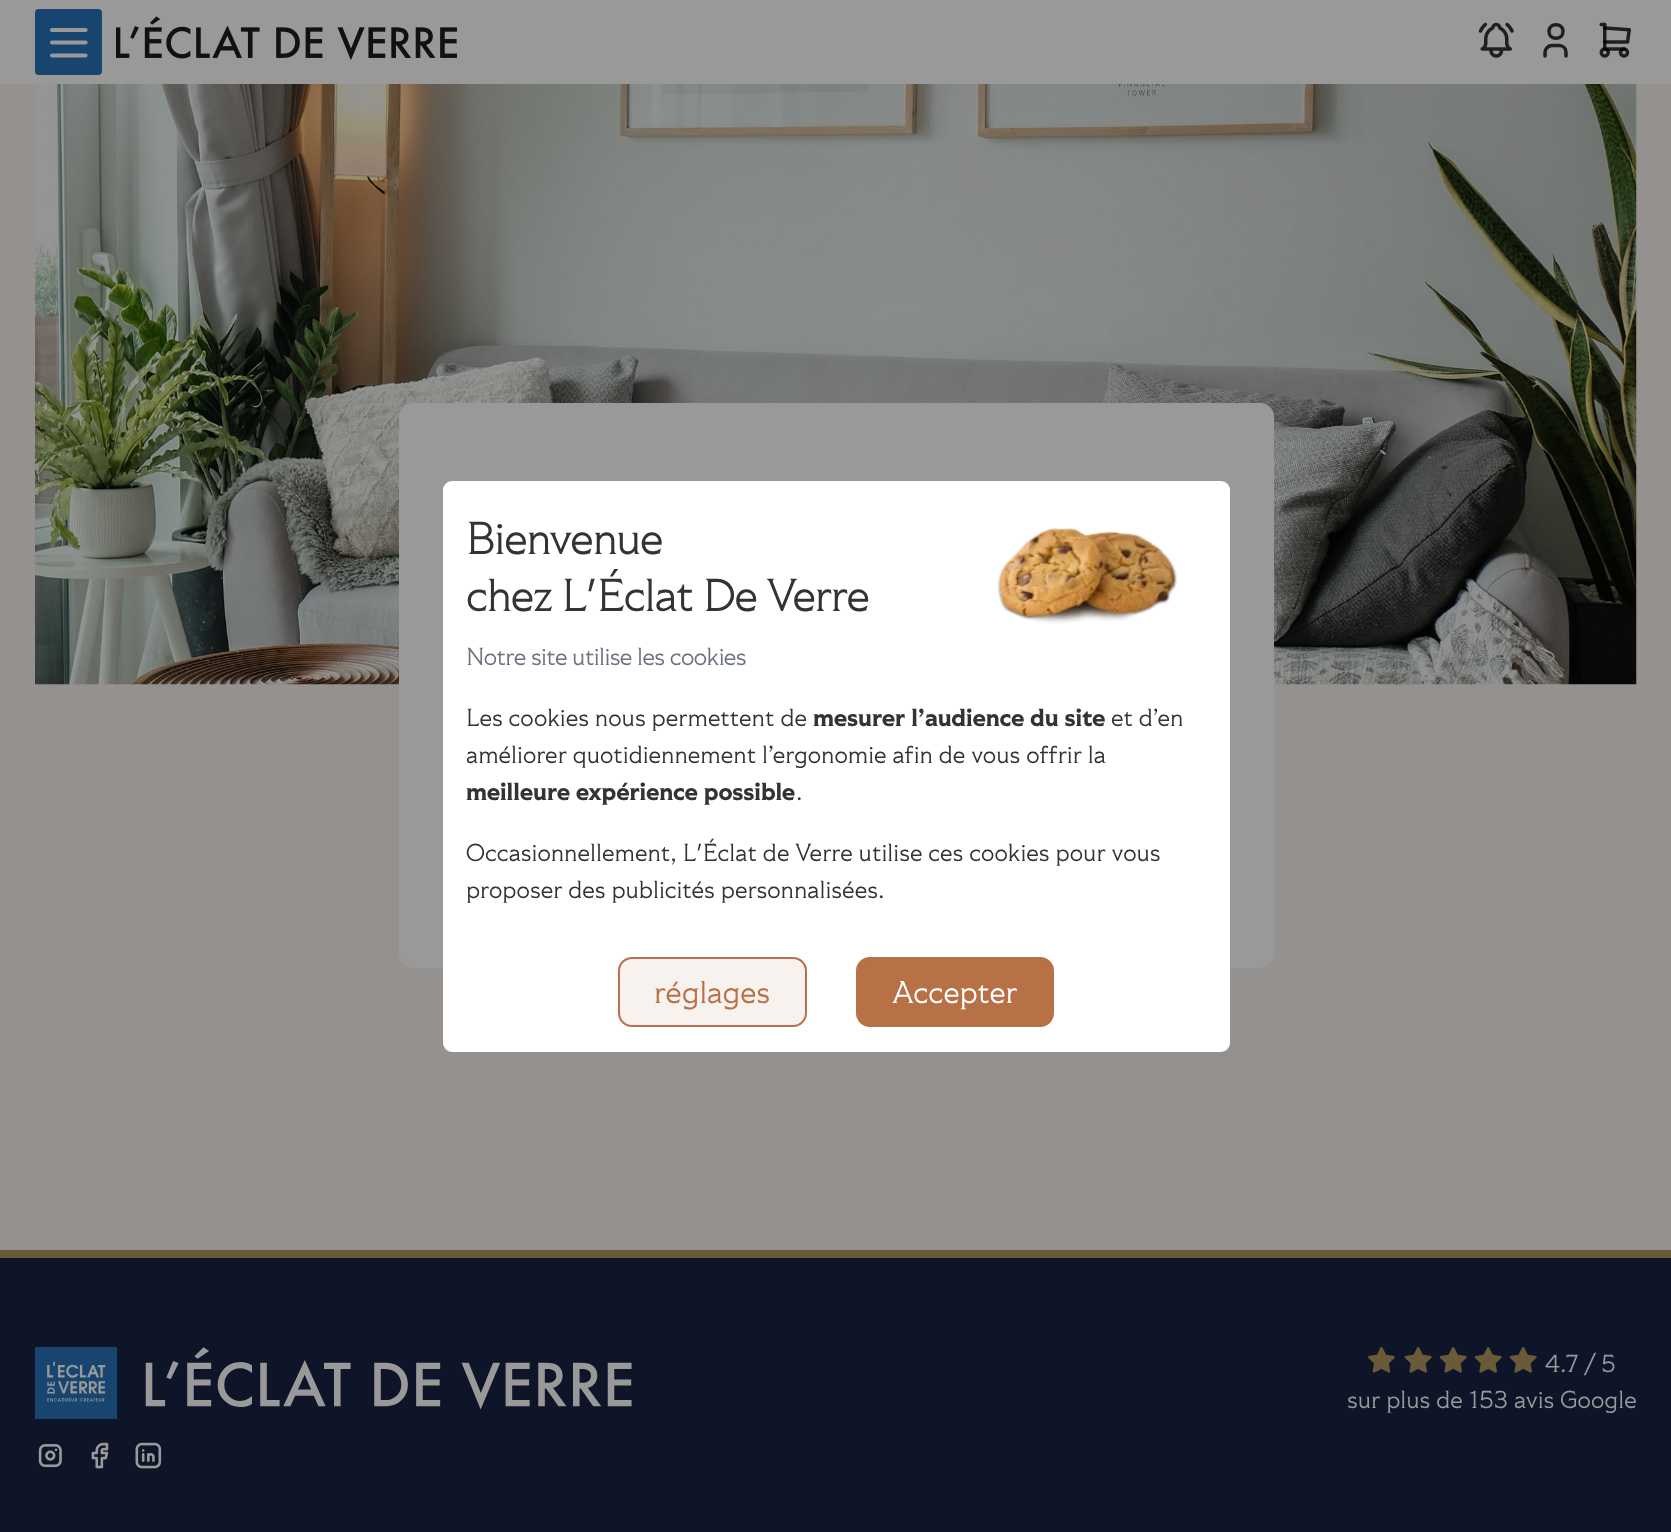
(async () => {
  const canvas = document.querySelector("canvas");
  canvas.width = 1671;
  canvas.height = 1532;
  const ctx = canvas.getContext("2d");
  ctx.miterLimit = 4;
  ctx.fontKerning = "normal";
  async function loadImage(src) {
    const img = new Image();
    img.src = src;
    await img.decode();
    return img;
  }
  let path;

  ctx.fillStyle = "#94918e";
  ctx.fillRect(0, 0, 1671, 1532);
  ctx.drawImage(await loadImage("img/5.png"), 35, 84, 1602, 601);
  ctx.fillStyle = "#999999";
  ctx.beginPath();
  ctx.roundRect(399, 403, 875, 565, 14);
  ctx.fill();
  ctx.fillStyle = "#ffffff";
  ctx.beginPath();
  ctx.roundRect(443, 481, 787, 571, 9);
  ctx.fill();
  ctx.drawImage(await loadImage("img/1.png"), 997, 528, 181, 96);
  ctx.fillStyle = "#f7f2ed";
  ctx.beginPath();
  ctx.roundRect(619, 958, 187, 68, 13);
  ctx.fill();
  ctx.strokeStyle = "#b87046";
  ctx.lineWidth = 2;
  ctx.stroke();
  ctx.fillStyle = "#b87046";
  ctx.beginPath();
  ctx.roundRect(857, 958, 196, 68, 13);
  ctx.fill();
  ctx.stroke();
  ctx.fillStyle = "#999999";
  ctx.fillRect(0, 0, 1671, 84);
  ctx.fillStyle = "#184570";
  ctx.beginPath();
  ctx.roundRect(35, 9, 67, 66, 4);
  ctx.fill();
  path = new Path2D("M52 30H85.5M52 42.5H85.5M52 55.5H85.5");
  ctx.strokeStyle = "#999999";
  ctx.lineWidth = 4.2;
  ctx.lineCap = "round";
  ctx.lineJoin = "round";
  ctx.stroke(path);
  ctx.drawImage(await loadImage("img/2.png"), 116, 16, 341, 44);
  ctx.drawImage(await loadImage("img/3.png"), 1478, 22, 36, 36);
  path = new Path2D("M1549 31.5C1549 40.5 1563 40.5 1563 31.5C1563 22.5 1549 22.5 1549 31.5M1545 56V52.5C1545 48.5 1548.5 45.5 1552 45.5H1559C1563 45.5 1566 48.5 1566 52.5V56");
  ctx.strokeStyle = "#1f1f1f";
  ctx.lineWidth = 3.5;
  ctx.stroke(path);
  ctx.drawImage(await loadImage("img/4.png"), 1599, 22, 32, 36);
  ctx.fillStyle = "#0e1528";
  ctx.fillRect(0, 1258, 1671, 274);
  ctx.fillStyle = "#6b5a3a";
  ctx.fillRect(0, 1250, 1671, 8);
  ctx.drawImage(await loadImage("img/6.png"), 35, 1347, 597, 72);
  ctx.drawImage(await loadImage("img/7.png"), 38, 1444, 24, 24);
  ctx.drawImage(await loadImage("img/8.png"), 91, 1442, 18, 27);
  ctx.drawImage(await loadImage("img/9.png"), 135, 1442, 27, 27);
  ctx.drawImage(await loadImage("img/10.png"), 1368, 1347, 27, 26);
  ctx.drawImage(await loadImage("img/11.png"), 1404, 1347, 28, 26);
  ctx.drawImage(await loadImage("img/11.png"), 1439, 1347, 28, 26);
  ctx.drawImage(await loadImage("img/11.png"), 1474, 1347, 28, 26);
  ctx.drawImage(await loadImage("img/11.png"), 1509, 1347, 28, 26);
  ctx.letterSpacing = "-1.15px";
  ctx.font = "46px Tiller";
  ctx.fillStyle = "#333333";
  ctx.fillText("Bienvenue", 466, 554);
  ctx.fillText("chez L'Éclat De Verre", 466, 611);
  ctx.letterSpacing = "-0.6px";
  ctx.font = "24.5px Tiller";
  ctx.fillStyle = "#6b7280";
  ctx.fillText("Notre site utilise les cookies", 466, 665);
  ctx.letterSpacing = "0px";
  ctx.fillStyle = "#333333";
  ctx.fillText("Les cookies nous permettent de", 466, 726);
  ctx.font = "bold 24.5px Tiller";
  ctx.fillText("mesurer l’audience du site", 813, 726);
  ctx.font = "24.5px Tiller";
  ctx.fillText("et d’en", 1111, 726);
  ctx.fillText("améliorer quotidiennement l’ergonomie afin de vous offrir la", 466, 763);
  ctx.font = "bold 24.5px Tiller";
  ctx.fillText("meilleure expérience possible", 466, 800);
  ctx.font = "24.5px Tiller";
  for (const [text, x, y] of [
    [".", 796, 800],
    ["Occasionnellement, L'Éclat de Verre utilise ces cookies pour vous", 466, 861],
    ["proposer des publicités personnalisées.", 466, 898],
  ]) {
    ctx.fillText(text, x, y);
  }
  ctx.font = "31.5px Tiller";
  ctx.fillStyle = "#b87046";
  ctx.fillText("réglages", 654, 1003);
  ctx.fillStyle = "#ffffff";
  ctx.fillText("Accepter", 892, 1003);
  ctx.font = "24.5px Tiller";
  ctx.fillStyle = "#999999";
  ctx.fillText("4.7 / 5", 1545, 1372);
  ctx.fillText("sur plus de 153 avis Google", 1347, 1408);
})();
